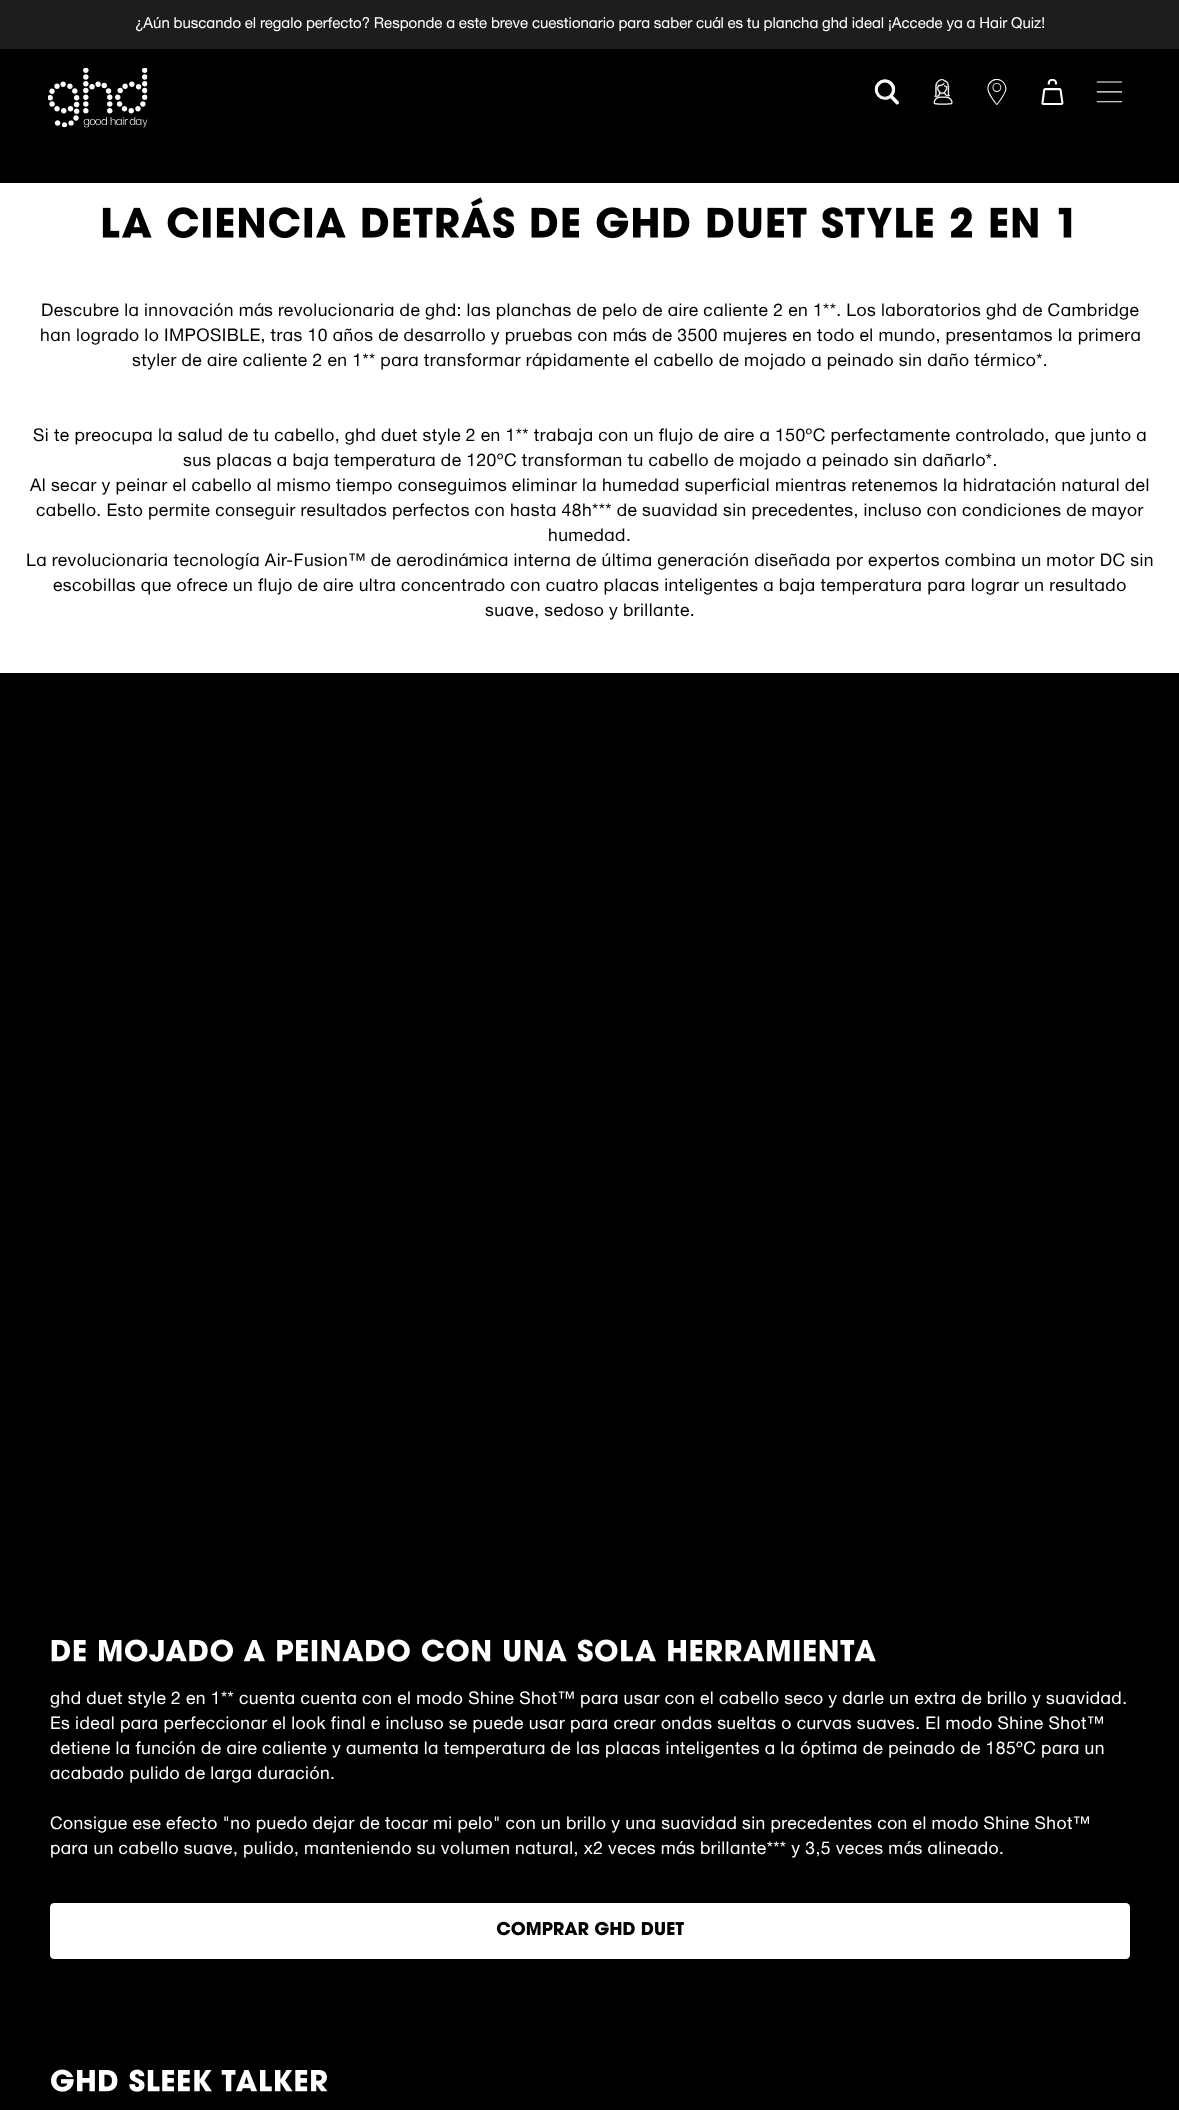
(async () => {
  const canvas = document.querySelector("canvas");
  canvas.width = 1179;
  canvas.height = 2110;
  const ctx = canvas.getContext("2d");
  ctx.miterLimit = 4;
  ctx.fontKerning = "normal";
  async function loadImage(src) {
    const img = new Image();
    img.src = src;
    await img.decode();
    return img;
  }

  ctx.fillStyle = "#ffffff";
  ctx.fillRect(0, 0, 1179, 2110);
  ctx.fillStyle = "#1d1d1d";
  ctx.fillRect(0, 0, 1179, 49);
  ctx.fillStyle = "#000000";
  ctx.fillRect(0, 49, 1179, 134);
  ctx.drawImage(await loadImage("img/1.png"), 48, 68, 100, 60);
  ctx.drawImage(await loadImage("img/2.png"), 874, 79, 25, 26);
  ctx.drawImage(await loadImage("img/3.png"), 933, 79, 20, 26);
  ctx.drawImage(await loadImage("img/4.png"), 987, 79, 20, 26);
  ctx.drawImage(await loadImage("img/5.png"), 1041, 79, 23, 26);
  ctx.drawImage(await loadImage("img/6.png"), 1096, 81, 27, 22);
  ctx.drawImage(await loadImage("img/7.png"), 102, 197, 970, 42);
  ctx.fillRect(0, 673, 1179, 1437);
  ctx.drawImage(await loadImage("img/8.png"), 51, 1639, 825, 23);
  ctx.fillStyle = "#ffffff";
  ctx.beginPath();
  ctx.roundRect(50.5, 1903.5, 1079, 55, 3.5);
  ctx.fill();
  ctx.strokeStyle = "#ffffff";
  ctx.stroke();
  ctx.drawImage(await loadImage("img/9.png"), 496, 1921, 188, 15);
  ctx.drawImage(await loadImage("img/10.png"), 51, 2069, 277, 23);
  ctx.font = "15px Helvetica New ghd";
  ctx.fillText("¿Aún buscando el regalo perfecto? Responde a este breve cuestionario para saber cuál es tu plancha ghd ideal ¡Accede ya a Hair Quiz!", 135, 28);
  ctx.letterSpacing = "0.43px";
  ctx.font = "17.5px Helvetica New ghd";
  ctx.fillStyle = "#000000";
  for (const [text, x, y] of [
    ["Descubre la innovación más revolucionaria de ghd: las planchas de pelo de aire caliente 2 en 1**. Los laboratorios ghd de Cambridge", 41, 316],
    ["han logrado lo IMPOSIBLE, tras 10 años de desarrollo y pruebas con más de 3500 mujeres en todo el mundo, presentamos la primera", 40, 341],
    ["styler de aire caliente 2 en 1** para transformar rápidamente el cabello de mojado a peinado sin daño térmico*.", 132, 366],
    ["Si te preocupa la salud de tu cabello, ghd duet style 2 en 1** trabaja con un flujo de aire a 150ºC perfectamente controlado, que junto a", 33, 441],
    ["sus placas a baja temperatura de 120ºC transforman tu cabello de mojado a peinado sin dañarlo*.", 183, 466],
    ["Al secar y peinar el cabello al mismo tiempo conseguimos eliminar la humedad superficial mientras retenemos la hidratación natural del", 30, 491],
    ["cabello. Esto permite conseguir resultados perfectos con hasta 48h*** de suavidad sin precedentes, incluso con condiciones de mayor", 36, 516],
    ["humedad.", 548, 541],
    ["La revolucionaria tecnología Air-Fusion™ de aerodinámica interna de última generación diseñada por expertos combina un motor DC sin", 26, 566],
    ["escobillas que ofrece un flujo de aire ultra concentrado con cuatro placas inteligentes a baja temperatura para lograr un resultado", 53, 591],
    ["suave, sedoso y brillante.", 485, 616],
  ]) {
    ctx.fillText(text, x, y);
  }
  ctx.fillStyle = "#ffffff";
  for (const [text, x, y] of [
    ["ghd duet style 2 en 1** cuenta cuenta con el modo Shine Shot™ para usar con el cabello seco y darle un extra de brillo y suavidad.", 50, 1704],
    ["Es ideal para perfeccionar el look final e incluso se puede usar para crear ondas sueltas o curvas suaves. El modo Shine Shot™", 50, 1729],
    ["detiene la función de aire caliente y aumenta la temperatura de las placas inteligentes a la óptima de peinado de 185ºC para un", 50, 1754],
    ["acabado pulido de larga duración.", 50, 1779],
    ["Consigue ese efecto \"no puedo dejar de tocar mi pelo\" con un brillo y una suavidad sin precedentes con el modo Shine Shot™", 50, 1829],
    ["para un cabello suave, pulido, manteniendo su volumen natural, x2 veces más brillante*** y 3,5 veces más alineado.", 50, 1854],
  ]) {
    ctx.fillText(text, x, y);
  }
})();
